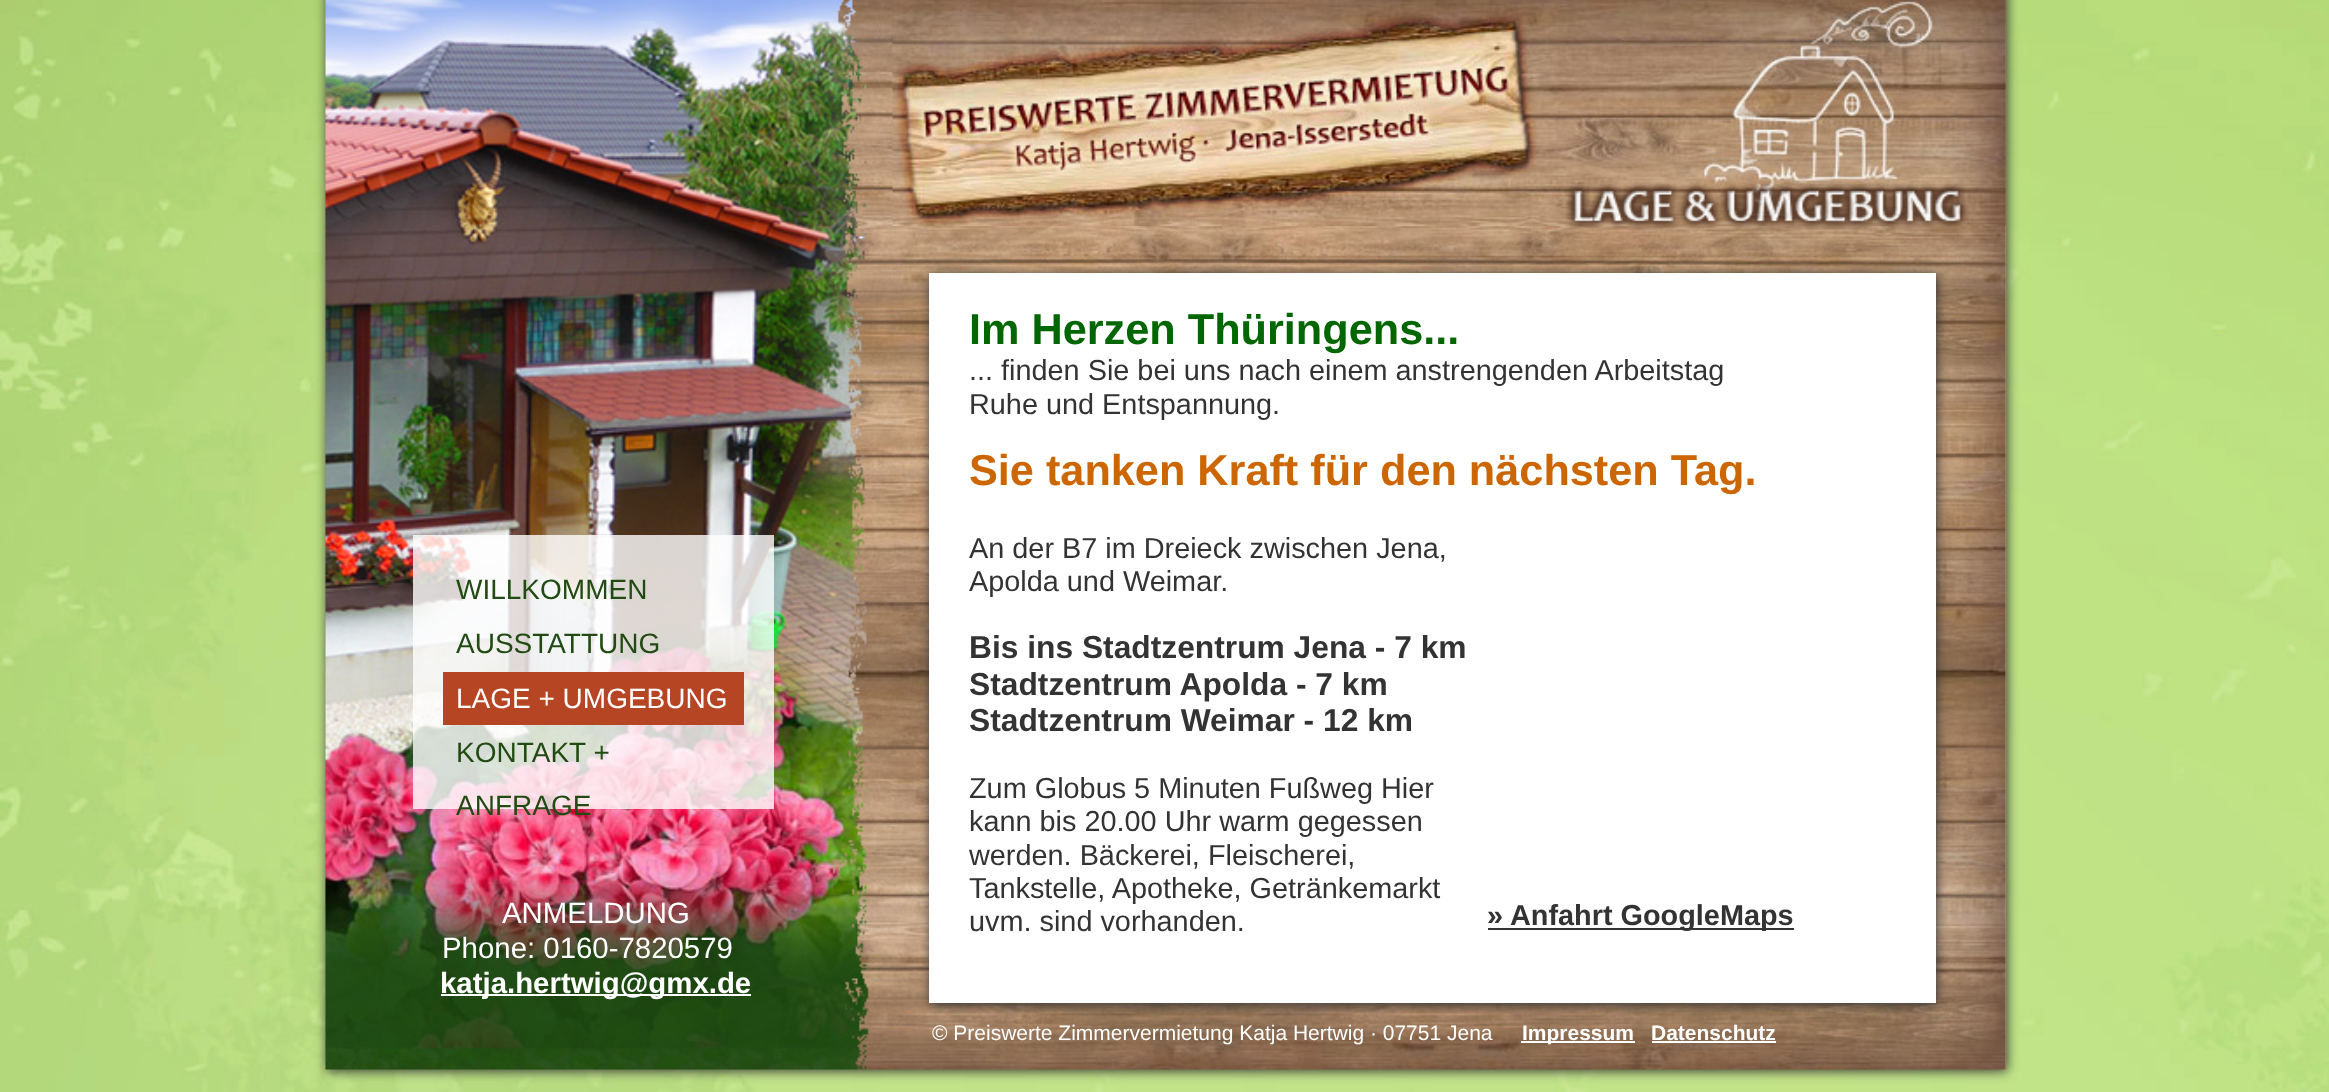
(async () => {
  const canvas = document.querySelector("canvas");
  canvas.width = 2329;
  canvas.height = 1092;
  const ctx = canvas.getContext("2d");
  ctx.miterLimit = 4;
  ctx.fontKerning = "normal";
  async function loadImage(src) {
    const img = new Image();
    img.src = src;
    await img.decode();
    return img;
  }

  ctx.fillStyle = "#ffffff";
  ctx.fillRect(0, 0, 2329, 1092);
  ctx.drawImage(await loadImage("img/1.png"), 0, 0, 2329, 1092);
  ctx.fillStyle = "#333333";
  ctx.filter = "blur(6px)";
  ctx.beginPath();
  ctx.rect(327, -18, 1680, 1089);
  ctx.fill();
  ctx.filter = "none";
  ctx.fillStyle = "#b99777";
  ctx.fillRect(2005, 0, 1, 1069);
  ctx.drawImage(await loadImage("img/2.png"), 325, 0, 1681, 1070);
  ctx.drawImage(await loadImage("img/3.png"), 892, 0, 1114, 226);
  ctx.drawImage(await loadImage("img/4.png"), 1565, 181, 404, 50);
  for (const [x, y, w, h, color] of [
    [413, 535, 361, 274, "rgba(255, 255, 255, 0.8)"],
    [443, 672, 301, 53, "#b64523"],
    [441, 994, 310, 2, "#ffffff"],
  ]) {
    ctx.fillStyle = color;
    ctx.fillRect(x, y, w, h);
  }
  ctx.fillStyle = "#333333";
  ctx.filter = "blur(6px)";
  ctx.beginPath();
  ctx.rect(931, 275, 1006, 730);
  ctx.fill();
  ctx.filter = "none";
  for (const [x, y, w, h, color] of [
    [929, 273, 1007, 730, "#ffffff"],
    [1488, 928, 306, 2, "#333333"],
    [1521, 1041, 114, 2, "#ffffff"],
    [1652, 1041, 124, 2, "#ffffff"],
  ]) {
    ctx.fillStyle = color;
    ctx.fillRect(x, y, w, h);
  }
  ctx.font = "28px Liberation Sans";
  ctx.fillStyle = "#214b13";
  ctx.fillText("WILLKOMMEN", 456, 599);
  ctx.fillText("AUSSTATTUNG", 456, 653);
  ctx.fillStyle = "#ffffff";
  ctx.fillText("LAGE + UMGEBUNG", 456, 708);
  ctx.fillStyle = "#214b13";
  ctx.fillText("KONTAKT +", 456, 762);
  ctx.fillText("ANFRAGE", 456, 815);
  ctx.font = "29.4px Liberation Sans";
  ctx.fillStyle = "#ffffff";
  ctx.fillText("ANMELDUNG", 502, 923);
  ctx.fillText("Phone: 0160-7820579", 442, 958);
  ctx.font = "bold 29.4px Liberation Sans";
  ctx.fillText("katja.hertwig@gmx.de", 440, 993);
  ctx.font = "bold 43.25px Liberation Sans";
  ctx.fillStyle = "#006600";
  ctx.fillText("Im Herzen Thüringens...", 969, 344);
  ctx.font = "28.85px Liberation Sans";
  ctx.fillStyle = "#333333";
  ctx.fillText("... finden Sie bei uns nach einem anstrengenden Arbeitstag", 969, 380);
  ctx.fillText("Ruhe und Entspannung.", 969, 414);
  ctx.font = "bold 43.25px Liberation Sans";
  ctx.fillStyle = "#cc6600";
  ctx.fillText("Sie tanken Kraft für den nächsten Tag.", 969, 485);
  ctx.font = "28.85px Liberation Sans";
  ctx.fillStyle = "#333333";
  ctx.fillText("An der B7 im Dreieck zwischen Jena,", 969, 558);
  ctx.fillText("Apolda und Weimar.", 969, 591);
  ctx.font = "bold 31.75px Liberation Sans";
  for (const [text, x, y] of [
    ["Bis ins Stadtzentrum Jena - 7 km", 969, 658],
    ["Stadtzentrum Apolda - 7 km", 969, 695],
    ["Stadtzentrum Weimar - 12 km", 969, 731],
  ]) {
    ctx.fillText(text, x, y);
  }
  ctx.font = "28.85px Liberation Sans";
  for (const [text, x, y] of [
    ["Zum Globus 5 Minuten Fußweg Hier", 969, 798],
    ["kann bis 20.00 Uhr warm gegessen", 969, 831],
    ["werden. Bäckerei, Fleischerei,", 969, 865],
    ["Tankstelle, Apotheke, Getränkemarkt", 969, 898],
    ["uvm. sind vorhanden.", 969, 931],
  ]) {
    ctx.fillText(text, x, y);
  }
  ctx.font = "bold 28.85px Liberation Sans";
  ctx.fillText("» Anfahrt GoogleMaps", 1487, 925);
  ctx.font = "21px Liberation Sans";
  ctx.fillStyle = "#ffffff";
  ctx.fillText("© Preiswerte Zimmervermietung Katja Hertwig · 07751 Jena", 932, 1040);
  ctx.font = "bold 21px Liberation Sans";
  ctx.fillText("Impressum", 1522, 1040);
  ctx.fillText("Datenschutz", 1651, 1040);
})();
